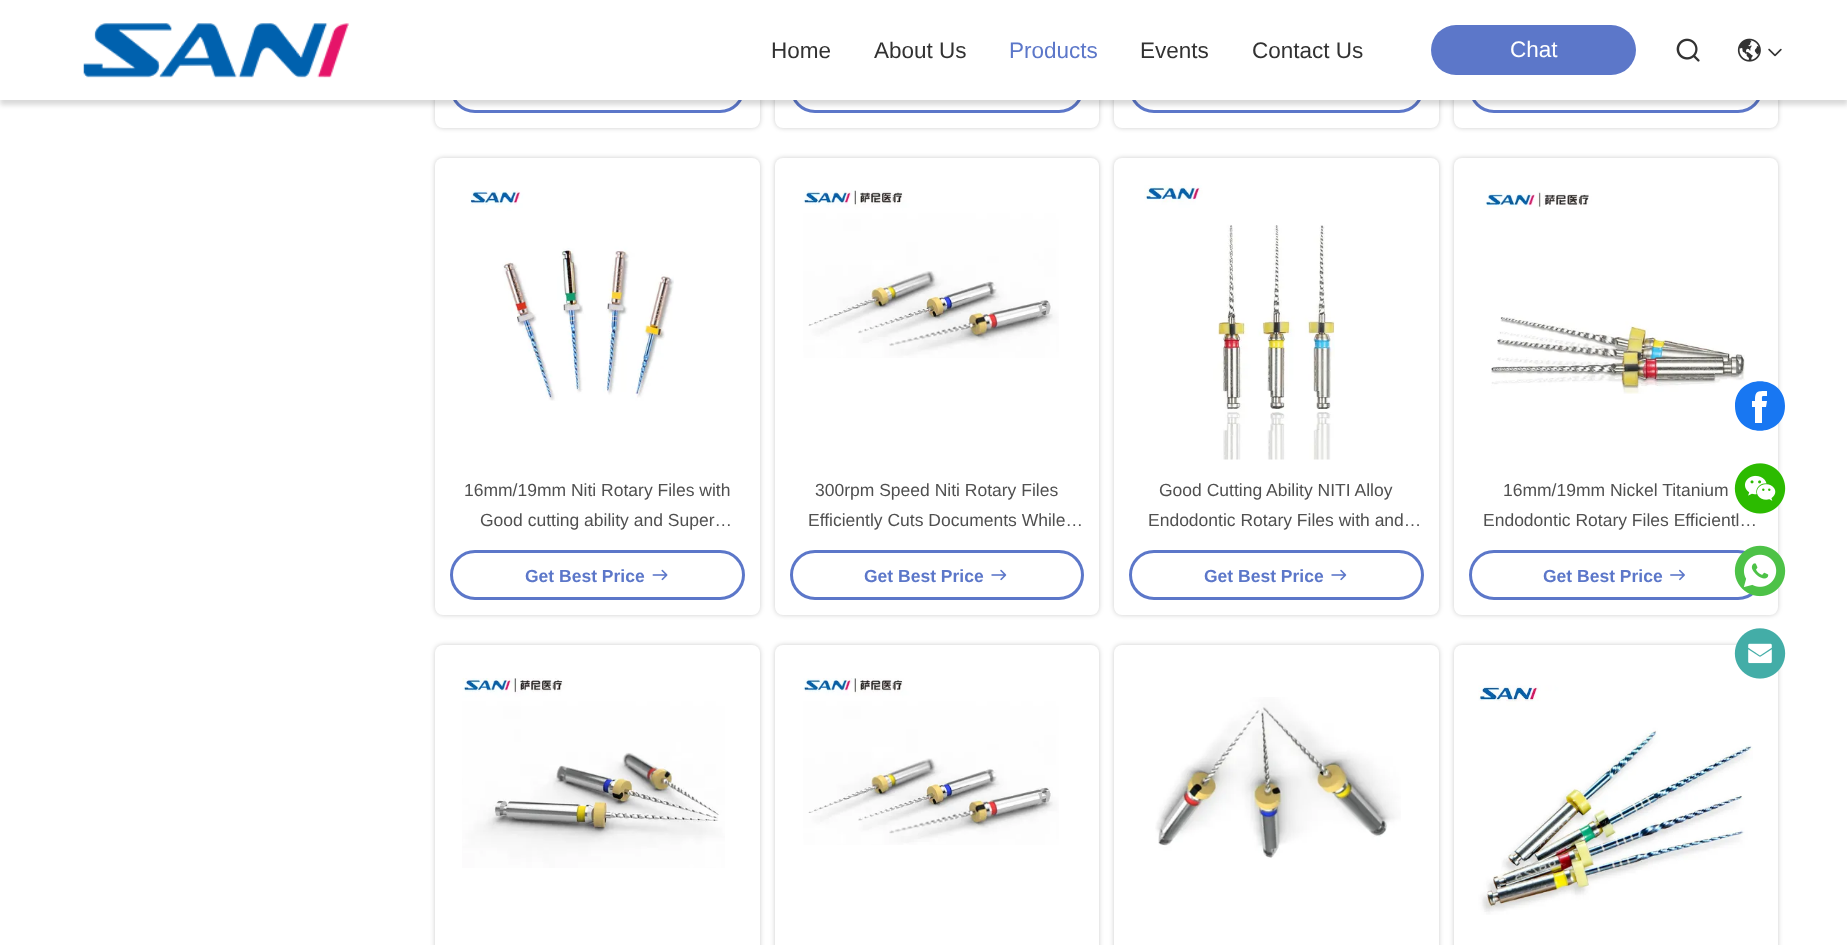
(async () => {
  const canvas = document.querySelector("canvas");
  canvas.width = 1847;
  canvas.height = 945;
  const ctx = canvas.getContext("2d");
  ctx.miterLimit = 4;
  ctx.fontKerning = "normal";
  async function loadImage(src) {
    const img = new Image();
    img.src = src;
    await img.decode();
    return img;
  }
  let path;

  ctx.fillStyle = "#ffffff";
  ctx.fillRect(0, 0, 1847, 945);
  ctx.fillStyle = "rgba(0, 0, 0, 0.2)";
  ctx.filter = "blur(2.5px)";
  ctx.beginPath();
  ctx.roundRect(435, -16, 325, 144, 8);
  ctx.fill();
  ctx.filter = "none";
  ctx.fillStyle = "#ffffff";
  ctx.beginPath();
  ctx.roundRect(435, -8, 325, 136, 8);
  ctx.fill();
  ctx.beginPath();
  ctx.roundRect(451.5, 64.5, 292, 47, 23.5);
  ctx.strokeStyle = "#5c77c9";
  ctx.lineWidth = 3;
  ctx.stroke();
  ctx.fillStyle = "rgba(0, 0, 0, 0.2)";
  ctx.filter = "blur(2.5px)";
  ctx.beginPath();
  ctx.roundRect(775, -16, 324, 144, 8);
  ctx.fill();
  ctx.filter = "none";
  ctx.fillStyle = "#ffffff";
  ctx.beginPath();
  ctx.roundRect(775, -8, 324, 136, 8);
  ctx.fill();
  ctx.beginPath();
  ctx.roundRect(791.5, 64.5, 291, 47, 23.5);
  ctx.stroke();
  ctx.fillStyle = "rgba(0, 0, 0, 0.2)";
  ctx.filter = "blur(2.5px)";
  ctx.beginPath();
  ctx.roundRect(1114, -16, 325, 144, 8);
  ctx.fill();
  ctx.filter = "none";
  ctx.fillStyle = "#ffffff";
  ctx.beginPath();
  ctx.roundRect(1114, -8, 325, 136, 8);
  ctx.fill();
  ctx.beginPath();
  ctx.roundRect(1130.5, 64.5, 292, 47, 23.5);
  ctx.stroke();
  ctx.fillStyle = "rgba(0, 0, 0, 0.2)";
  ctx.filter = "blur(2.5px)";
  ctx.beginPath();
  ctx.roundRect(1454, -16, 324, 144, 8);
  ctx.fill();
  ctx.filter = "none";
  ctx.fillStyle = "#ffffff";
  ctx.beginPath();
  ctx.roundRect(1454, -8, 324, 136, 8);
  ctx.fill();
  ctx.beginPath();
  ctx.roundRect(1470.5, 64.5, 291, 47, 23.5);
  ctx.stroke();
  ctx.fillStyle = "rgba(0, 0, 0, 0.15)";
  ctx.filter = "blur(2.5px)";
  ctx.beginPath();
  ctx.rect(0, 5, 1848, 100);
  ctx.fill();
  ctx.filter = "none";
  ctx.fillStyle = "#ffffff";
  ctx.fillRect(0, 0, 1847, 100);
  ctx.drawImage(await loadImage("img/1.png"), 83, 23, 266, 55);
  ctx.fillStyle = "#5c77c9";
  ctx.beginPath();
  ctx.roundRect(1431, 25, 205, 50, 25);
  ctx.fill();
  ctx.drawImage(await loadImage("img/2.png"), 1676, 38, 24, 24);
  ctx.drawImage(await loadImage("img/3.png"), 1737, 38, 24, 24);
  ctx.drawImage(await loadImage("img/4.png"), 1768, 48, 14, 9);
  ctx.fillStyle = "rgba(0, 0, 0, 0.2)";
  ctx.filter = "blur(2.5px)";
  ctx.beginPath();
  ctx.roundRect(435, 158, 325, 457, 8);
  ctx.fill();
  ctx.filter = "none";
  ctx.fillStyle = "#ffffff";
  ctx.beginPath();
  ctx.roundRect(435, 158, 325, 457, 8);
  ctx.fill();
  ctx.drawImage(await loadImage("img/5.png"), 470, 190, 204, 211);
  ctx.beginPath();
  ctx.roundRect(451.5, 551.5, 292, 47, 23.5);
  ctx.stroke();
  ctx.drawImage(await loadImage("img/6.png"), 652, 569, 16, 12);
  ctx.fillStyle = "rgba(0, 0, 0, 0.2)";
  ctx.filter = "blur(2.5px)";
  ctx.beginPath();
  ctx.roundRect(775, 158, 324, 457, 8);
  ctx.fill();
  ctx.filter = "none";
  ctx.fillStyle = "#ffffff";
  ctx.beginPath();
  ctx.roundRect(775, 158, 324, 457, 8);
  ctx.fill();
  ctx.drawImage(await loadImage("img/7.png"), 803, 190, 256, 168);
  ctx.beginPath();
  ctx.roundRect(791.5, 551.5, 291, 47, 23.5);
  ctx.stroke();
  ctx.drawImage(await loadImage("img/8.png"), 991, 569, 16, 12);
  ctx.fillStyle = "rgba(0, 0, 0, 0.2)";
  ctx.filter = "blur(2.5px)";
  ctx.beginPath();
  ctx.roundRect(1114, 158, 325, 457, 8);
  ctx.fill();
  ctx.filter = "none";
  ctx.fillStyle = "#ffffff";
  ctx.beginPath();
  ctx.roundRect(1114, 158, 325, 457, 8);
  ctx.fill();
  ctx.drawImage(await loadImage("img/9.png"), 1144, 185, 191, 275);
  ctx.beginPath();
  ctx.roundRect(1130.5, 551.5, 292, 47, 23.5);
  ctx.stroke();
  ctx.drawImage(await loadImage("img/8.png"), 1331, 569, 16, 12);
  ctx.fillStyle = "rgba(0, 0, 0, 0.2)";
  ctx.filter = "blur(2.5px)";
  ctx.beginPath();
  ctx.roundRect(1454, 158, 324, 457, 8);
  ctx.fill();
  ctx.filter = "none";
  ctx.fillStyle = "#ffffff";
  ctx.beginPath();
  ctx.roundRect(1454, 158, 324, 457, 8);
  ctx.fill();
  ctx.drawImage(await loadImage("img/10.png"), 1483, 190, 262, 204);
  ctx.beginPath();
  ctx.roundRect(1470.5, 551.5, 291, 47, 23.5);
  ctx.stroke();
  ctx.drawImage(await loadImage("img/11.png"), 1670, 569, 15, 12);
  ctx.fillStyle = "rgba(0, 0, 0, 0.2)";
  ctx.filter = "blur(2.5px)";
  ctx.beginPath();
  ctx.roundRect(435, 645, 325, 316, 8);
  ctx.fill();
  ctx.filter = "none";
  ctx.fillStyle = "#ffffff";
  ctx.beginPath();
  ctx.roundRect(435, 645, 325, 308, 8);
  ctx.fill();
  ctx.drawImage(await loadImage("img/12.png"), 462, 678, 263, 190);
  ctx.fillStyle = "rgba(0, 0, 0, 0.2)";
  ctx.filter = "blur(2.5px)";
  ctx.beginPath();
  ctx.roundRect(775, 645, 324, 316, 8);
  ctx.fill();
  ctx.filter = "none";
  ctx.fillStyle = "#ffffff";
  ctx.beginPath();
  ctx.roundRect(775, 645, 324, 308, 8);
  ctx.fill();
  ctx.drawImage(await loadImage("img/13.png"), 803, 678, 256, 167);
  ctx.fillStyle = "rgba(0, 0, 0, 0.2)";
  ctx.filter = "blur(2.5px)";
  ctx.beginPath();
  ctx.roundRect(1114, 645, 325, 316, 8);
  ctx.fill();
  ctx.filter = "none";
  ctx.fillStyle = "#ffffff";
  ctx.beginPath();
  ctx.roundRect(1114, 645, 325, 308, 8);
  ctx.fill();
  ctx.drawImage(await loadImage("img/14.png"), 1155, 697, 246, 162);
  ctx.fillStyle = "rgba(0, 0, 0, 0.2)";
  ctx.filter = "blur(2.5px)";
  ctx.beginPath();
  ctx.roundRect(1454, 645, 324, 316, 8);
  ctx.fill();
  ctx.filter = "none";
  ctx.fillStyle = "#ffffff";
  ctx.beginPath();
  ctx.roundRect(1454, 645, 324, 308, 8);
  ctx.fill();
  ctx.drawImage(await loadImage("img/15.png"), 1478, 685, 275, 230);
  ctx.fillStyle = "#1877f2";
  path = new Path2D("M1735 406C1735 373 1785 373 1785 406C1785 439 1735 439 1735 406ZM1766 407L1767 401H1762C1762 395 1761 396 1767 396V391C1757 391 1755 391 1755 401H1752V407H1755V423H1762V407Z");
  ctx.fill(path);
  ctx.fillStyle = "#ffffff";
  ctx.beginPath();
  ctx.arc(1759, 574, 19, 0, Math.PI * 2);
  ctx.fill();
  ctx.drawImage(await loadImage("img/17.png"), 1734, 545, 52, 52);
  ctx.beginPath();
  ctx.roundRect(1740, 638, 38, 37, 18.5);
  ctx.fill();
  ctx.drawImage(await loadImage("img/18.png"), 1734, 628, 52, 51);
  ctx.font = "22.5px Liberation Sans";
  ctx.fillStyle = "#323232";
  ctx.fillText("Home", 771, 58);
  ctx.fillText("About Us", 874, 58);
  ctx.fillStyle = "#5c77c9";
  ctx.fillText("Products", 1009, 58);
  ctx.fillStyle = "#323232";
  ctx.fillText("Events", 1140, 58);
  ctx.fillText("Contact Us", 1252, 58);
  ctx.fillStyle = "#ffffff";
  ctx.fillText("Chat", 1510, 57);
  ctx.font = "17.5px Liberation Sans";
  ctx.fillStyle = "#505050";
  ctx.fillText("16mm/19mm Niti Rotary Files with", 464, 496);
  ctx.fillText("Good cutting ability and Super…", 480, 526);
  ctx.font = "bold 17.5px Liberation Sans";
  ctx.fillStyle = "#5c77c9";
  ctx.fillText("Get Best Price", 525, 582);
  ctx.font = "17.5px Liberation Sans";
  ctx.fillStyle = "#505050";
  ctx.fillText("300rpm Speed Niti Rotary Files", 815, 496);
  ctx.fillText("Efficiently Cuts Documents While…", 808, 526);
  ctx.font = "bold 17.5px Liberation Sans";
  ctx.fillStyle = "#5c77c9";
  ctx.fillText("Get Best Price", 864, 582);
  ctx.font = "17.5px Liberation Sans";
  ctx.fillStyle = "#505050";
  ctx.fillText("Good Cutting Ability NITI Alloy", 1159, 496);
  ctx.fillText("Endodontic Rotary Files with and…", 1148, 526);
  ctx.font = "bold 17.5px Liberation Sans";
  ctx.fillStyle = "#5c77c9";
  ctx.fillText("Get Best Price", 1204, 582);
  ctx.font = "17.5px Liberation Sans";
  ctx.fillStyle = "#505050";
  ctx.fillText("16mm/19mm Nickel Titanium", 1503, 496);
  ctx.fillText("Endodontic Rotary Files Efficientl…", 1483, 526);
  ctx.font = "bold 17.5px Liberation Sans";
  ctx.fillStyle = "#5c77c9";
  ctx.fillText("Get Best Price", 1543, 582);
  ctx.drawImage(await loadImage("img/16.png"), 1734, 463, 52, 51);
})();
